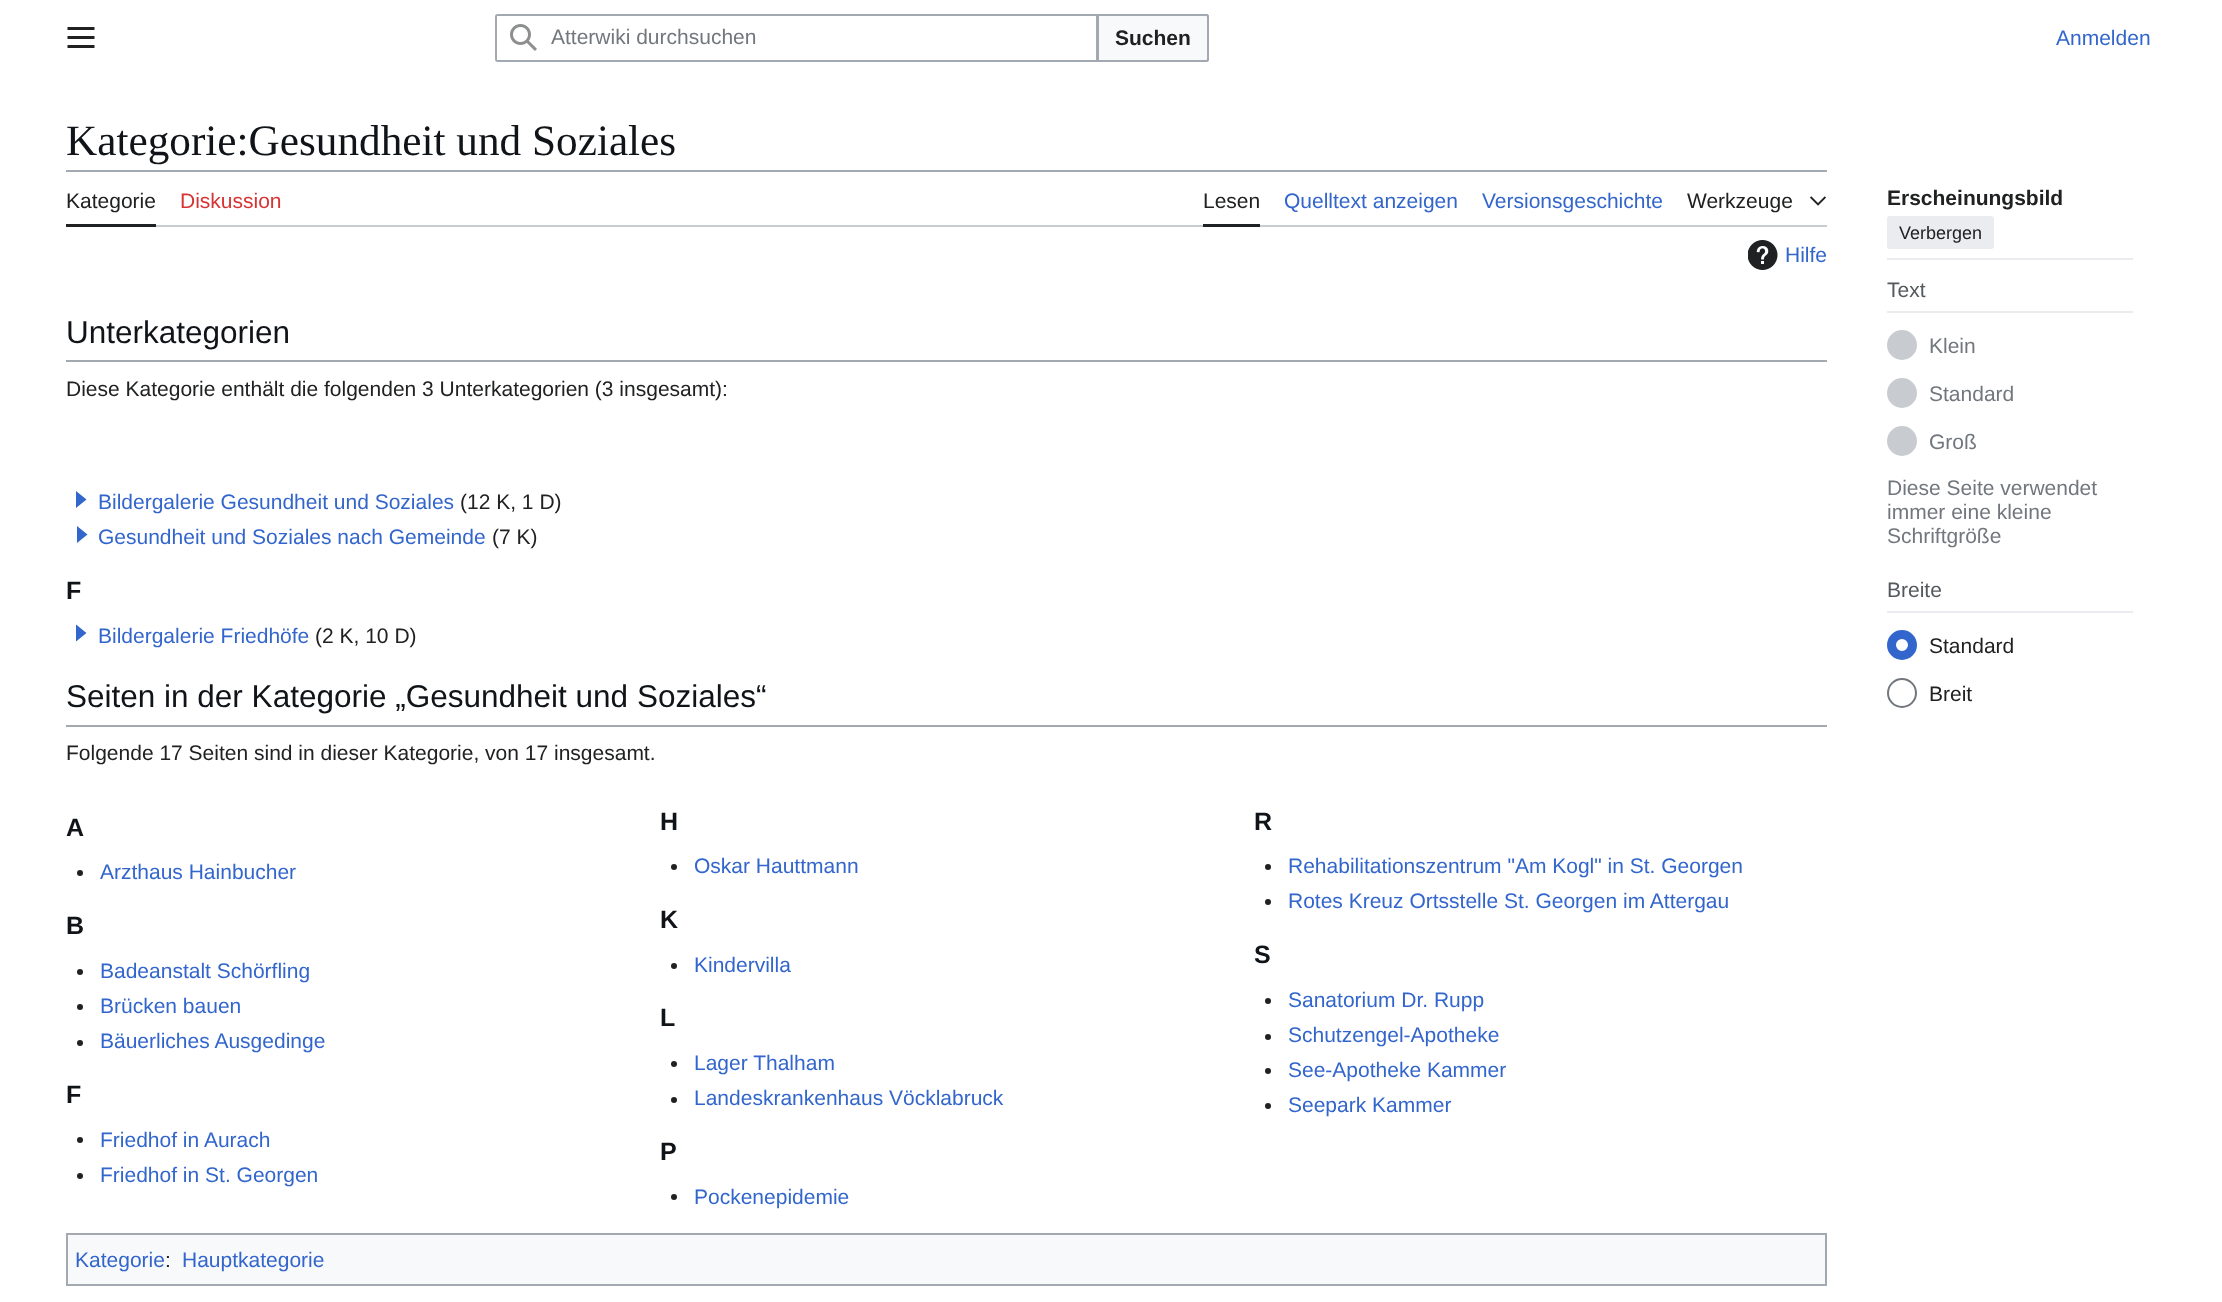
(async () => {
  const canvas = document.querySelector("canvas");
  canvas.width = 2222;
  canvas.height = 1302;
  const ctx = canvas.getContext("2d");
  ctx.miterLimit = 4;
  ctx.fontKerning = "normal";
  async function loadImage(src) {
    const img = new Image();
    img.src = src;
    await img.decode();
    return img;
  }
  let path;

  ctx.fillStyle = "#ffffff";
  ctx.fillRect(0, 0, 2222, 1302);
  ctx.drawImage(await loadImage("img/1.png"), 67, 27, 28, 21);
  ctx.beginPath();
  ctx.roundRect(496, 15, 712, 46, 2);
  ctx.strokeStyle = "#a2a9b1";
  ctx.lineWidth = 2;
  ctx.stroke();
  ctx.fillStyle = "#f8f9fa";
  ctx.beginPath();
  ctx.roundRect(1098, 15, 110, 46, [0, 2, 2, 0]);
  ctx.fill();
  ctx.stroke();
  ctx.fillStyle = "#ffffff";
  ctx.beginPath();
  ctx.roundRect(495, 14, 603, 48, [3, 0, 0, 3]);
  ctx.fill();
  ctx.fillStyle = "#a2a9b1";
  path = new Path2D("M498 14C496 14 495 15 495 17V59C495 61 496 62 498 62H1098V14ZM497 16V60H1096V16Z");
  ctx.fill(path, "evenodd");
  ctx.drawImage(await loadImage("img/2.png"), 510, 24, 27, 27);
  for (const [x, y, w, h, color] of [
    [66, 170, 1761, 2, "#a2a9b1"],
    [156, 225, 1671, 2, "#c8ccd1"],
    [66, 224, 90, 3, "#202122"],
    [1203, 224, 57, 3, "#202122"],
  ]) {
    ctx.fillStyle = color;
    ctx.fillRect(x, y, w, h);
  }
  ctx.drawImage(await loadImage("img/3.png"), 1810, 196, 16, 10);
  ctx.fillStyle = "#eaecf0";
  ctx.fillRect(1887, 258, 246, 2);
  ctx.beginPath();
  ctx.roundRect(1887, 216, 107, 33, 3);
  ctx.fill();
  ctx.fillRect(1887, 311, 246, 2);
  ctx.fillStyle = "#c8ccd1";
  ctx.beginPath();
  ctx.arc(1902, 345, 14, 0, Math.PI * 2);
  ctx.fill();
  ctx.strokeStyle = "#c8ccd1";
  ctx.stroke();
  ctx.beginPath();
  ctx.arc(1902, 393, 14, 0, Math.PI * 2);
  ctx.fill();
  ctx.stroke();
  ctx.beginPath();
  ctx.arc(1902, 441, 14, 0, Math.PI * 2);
  ctx.fill();
  ctx.stroke();
  ctx.fillStyle = "#eaecf0";
  ctx.fillRect(1887, 611, 246, 2);
  ctx.beginPath();
  ctx.arc(1902, 645, 10.5, 0, Math.PI * 2);
  ctx.strokeStyle = "#3366cc";
  ctx.lineWidth = 9;
  ctx.stroke();
  ctx.beginPath();
  ctx.arc(1902, 693, 14, 0, Math.PI * 2);
  ctx.strokeStyle = "#72777d";
  ctx.lineWidth = 2;
  ctx.stroke();
  ctx.drawImage(await loadImage("img/4.png"), 1748, 240, 30, 30);
  ctx.fillStyle = "#a2a9b1";
  ctx.fillRect(66, 360, 1761, 2);
  ctx.fillStyle = "#3366cc";
  path = new Path2D("M86.5 499.5L76 508V491ZM87.5 534.5L77 543V526Z");
  ctx.fill(path);
  path = new Path2D("M86.5 633L76 641.5V624.5Z");
  ctx.fill(path);
  ctx.fillStyle = "#a2a9b1";
  ctx.fillRect(66, 725, 1761, 2);
  ctx.fillStyle = "#202122";
  ctx.beginPath();
  ctx.arc(80, 873, 3, 0, Math.PI * 2);
  ctx.fill();
  ctx.beginPath();
  ctx.arc(674, 867, 3, 0, Math.PI * 2);
  ctx.fill();
  ctx.beginPath();
  ctx.arc(1268, 867, 3, 0, Math.PI * 2);
  ctx.fill();
  ctx.beginPath();
  ctx.arc(1268, 902, 3, 0, Math.PI * 2);
  ctx.fill();
  ctx.beginPath();
  ctx.arc(80, 972, 3, 0, Math.PI * 2);
  ctx.fill();
  ctx.beginPath();
  ctx.arc(80, 1007, 3, 0, Math.PI * 2);
  ctx.fill();
  ctx.beginPath();
  ctx.arc(80, 1043, 3, 0, Math.PI * 2);
  ctx.fill();
  ctx.beginPath();
  ctx.arc(674, 966, 3, 0, Math.PI * 2);
  ctx.fill();
  ctx.beginPath();
  ctx.arc(1268, 1001, 3, 0, Math.PI * 2);
  ctx.fill();
  ctx.beginPath();
  ctx.arc(1268, 1037, 3, 0, Math.PI * 2);
  ctx.fill();
  ctx.beginPath();
  ctx.arc(1268, 1071, 3, 0, Math.PI * 2);
  ctx.fill();
  ctx.beginPath();
  ctx.arc(1268, 1106, 3, 0, Math.PI * 2);
  ctx.fill();
  ctx.beginPath();
  ctx.arc(674, 1064, 3, 0, Math.PI * 2);
  ctx.fill();
  ctx.beginPath();
  ctx.arc(674, 1100, 3, 0, Math.PI * 2);
  ctx.fill();
  ctx.beginPath();
  ctx.arc(80, 1140, 3, 0, Math.PI * 2);
  ctx.fill();
  ctx.beginPath();
  ctx.arc(80, 1176, 3, 0, Math.PI * 2);
  ctx.fill();
  ctx.beginPath();
  ctx.arc(674, 1197, 3, 0, Math.PI * 2);
  ctx.fill();
  ctx.fillStyle = "#f8f9fa";
  ctx.beginPath();
  ctx.rect(67, 1234, 1759, 51);
  ctx.fill();
  ctx.strokeStyle = "#a2a9b1";
  ctx.stroke();
  ctx.font = "21px Liberation Sans";
  ctx.fillStyle = "#72777d";
  ctx.fillText("Atterwiki durchsuchen", 551, 44);
  ctx.font = "bold 21px Liberation Sans";
  ctx.fillStyle = "#202122";
  ctx.fillText("Suchen", 1115, 45);
  ctx.font = "21px Liberation Sans";
  ctx.fillStyle = "#3366cc";
  ctx.fillText("Anmelden", 2056, 45);
  ctx.font = "43.25px Liberation Serif";
  ctx.fillStyle = "#101418";
  ctx.fillText("Kategorie:Gesundheit und Soziales", 66, 155);
  ctx.font = "21px Liberation Sans";
  ctx.fillStyle = "#202122";
  ctx.fillText("Kategorie", 66, 208);
  ctx.fillStyle = "#d73333";
  ctx.fillText("Diskussion", 180, 208);
  ctx.fillStyle = "#202122";
  ctx.fillText("Lesen", 1203, 208);
  ctx.fillStyle = "#3366cc";
  ctx.fillText("Quelltext anzeigen", 1284, 208);
  ctx.fillText("Versionsgeschichte", 1482, 208);
  ctx.fillStyle = "#202122";
  ctx.fillText("Werkzeuge", 1687, 208);
  ctx.font = "bold 21px Liberation Sans";
  ctx.fillText("Erscheinungsbild", 1887, 205);
  ctx.font = "18px Liberation Sans";
  ctx.fillText("Verbergen", 1899, 239);
  ctx.font = "21px Liberation Sans";
  ctx.fillStyle = "#54595d";
  ctx.fillText("Text", 1887, 297);
  ctx.fillStyle = "#72777d";
  for (const [text, x, y] of [
    ["Klein", 1929, 353],
    ["Standard", 1929, 401],
    ["Groß", 1929, 449],
    ["Diese Seite verwendet", 1887, 495],
    ["immer eine kleine", 1887, 519],
    ["Schriftgröße", 1887, 543],
  ]) {
    ctx.fillText(text, x, y);
  }
  ctx.fillStyle = "#54595d";
  ctx.fillText("Breite", 1887, 597);
  ctx.fillStyle = "#202122";
  ctx.fillText("Standard", 1929, 653);
  ctx.fillText("Breit", 1929, 701);
  ctx.fillStyle = "#3366cc";
  ctx.fillText("Hilfe", 1785, 262);
  ctx.font = "31.5px Liberation Sans";
  ctx.fillStyle = "#101418";
  ctx.fillText("Unterkategorien", 66, 343);
  ctx.font = "21px Liberation Sans";
  ctx.fillStyle = "#202122";
  ctx.fillText("Diese Kategorie enthält die folgenden 3 Unterkategorien (3 insgesamt):", 66, 396);
  ctx.fillStyle = "#3366cc";
  ctx.fillText("Bildergalerie Gesundheit und Soziales", 98, 509);
  ctx.fillStyle = "#202122";
  ctx.fillText("(12 K, 1 D)", 460, 509);
  ctx.fillStyle = "#3366cc";
  ctx.fillText("Gesundheit und Soziales nach Gemeinde", 98, 544);
  ctx.fillStyle = "#202122";
  ctx.fillText("(7 K)", 492, 544);
  ctx.font = "bold 25px Liberation Sans";
  ctx.fillStyle = "#101418";
  ctx.fillText("F", 66, 599);
  ctx.font = "21px Liberation Sans";
  ctx.fillStyle = "#3366cc";
  ctx.fillText("Bildergalerie Friedhöfe", 98, 643);
  ctx.fillStyle = "#202122";
  ctx.fillText("(2 K, 10 D)", 315, 643);
  ctx.font = "31.5px Liberation Sans";
  ctx.fillStyle = "#101418";
  ctx.fillText("Seiten in der Kategorie „Gesundheit und Soziales“", 66, 707);
  ctx.font = "21px Liberation Sans";
  ctx.fillStyle = "#202122";
  ctx.fillText("Folgende 17 Seiten sind in dieser Kategorie, von 17 insgesamt.", 66, 760);
  ctx.font = "bold 25px Liberation Sans";
  ctx.fillStyle = "#101418";
  ctx.fillText("A", 66, 836);
  ctx.font = "21px Liberation Sans";
  ctx.fillStyle = "#3366cc";
  ctx.fillText("Arzthaus Hainbucher", 100, 879);
  ctx.font = "bold 25px Liberation Sans";
  ctx.fillStyle = "#101418";
  ctx.fillText("H", 660, 830);
  ctx.font = "21px Liberation Sans";
  ctx.fillStyle = "#3366cc";
  ctx.fillText("Oskar Hauttmann", 694, 873);
  ctx.font = "bold 25px Liberation Sans";
  ctx.fillStyle = "#101418";
  ctx.fillText("R", 1254, 830);
  ctx.font = "21px Liberation Sans";
  ctx.fillStyle = "#3366cc";
  ctx.fillText("Rehabilitationszentrum \"Am Kogl\" in St. Georgen", 1288, 873);
  ctx.fillText("Rotes Kreuz Ortsstelle St. Georgen im Attergau", 1288, 908);
  ctx.font = "bold 25px Liberation Sans";
  ctx.fillStyle = "#101418";
  ctx.fillText("B", 66, 934);
  ctx.font = "21px Liberation Sans";
  ctx.fillStyle = "#3366cc";
  for (const [text, x, y] of [
    ["Badeanstalt Schörfling", 100, 978],
    ["Brücken bauen", 100, 1013],
    ["Bäuerliches Ausgedinge", 100, 1048],
  ]) {
    ctx.fillText(text, x, y);
  }
  ctx.font = "bold 25px Liberation Sans";
  ctx.fillStyle = "#101418";
  ctx.fillText("K", 660, 928);
  ctx.font = "21px Liberation Sans";
  ctx.fillStyle = "#3366cc";
  ctx.fillText("Kindervilla", 694, 972);
  ctx.font = "bold 25px Liberation Sans";
  ctx.fillStyle = "#101418";
  ctx.fillText("S", 1254, 963);
  ctx.font = "21px Liberation Sans";
  ctx.fillStyle = "#3366cc";
  for (const [text, x, y] of [
    ["Sanatorium Dr. Rupp", 1288, 1007],
    ["Schutzengel-Apotheke", 1288, 1042],
    ["See-Apotheke Kammer", 1288, 1077],
    ["Seepark Kammer", 1288, 1112],
  ]) {
    ctx.fillText(text, x, y);
  }
  ctx.font = "bold 25px Liberation Sans";
  ctx.fillStyle = "#101418";
  ctx.fillText("L", 660, 1026);
  ctx.font = "21px Liberation Sans";
  ctx.fillStyle = "#3366cc";
  ctx.fillText("Lager Thalham", 694, 1070);
  ctx.fillText("Landeskrankenhaus Vöcklabruck", 694, 1105);
  ctx.font = "bold 25px Liberation Sans";
  ctx.fillStyle = "#101418";
  ctx.fillText("F", 66, 1103);
  ctx.font = "21px Liberation Sans";
  ctx.fillStyle = "#3366cc";
  ctx.fillText("Friedhof in Aurach", 100, 1147);
  ctx.fillText("Friedhof in St. Georgen", 100, 1182);
  ctx.font = "bold 25px Liberation Sans";
  ctx.fillStyle = "#101418";
  ctx.fillText("P", 660, 1160);
  ctx.font = "21px Liberation Sans";
  ctx.fillStyle = "#3366cc";
  ctx.fillText("Pockenepidemie", 694, 1204);
  ctx.fillText("Kategorie", 75, 1267);
  ctx.fillStyle = "#202122";
  ctx.fillText(":", 165, 1267);
  ctx.fillStyle = "#3366cc";
  ctx.fillText("Hauptkategorie", 182, 1267);
})();
